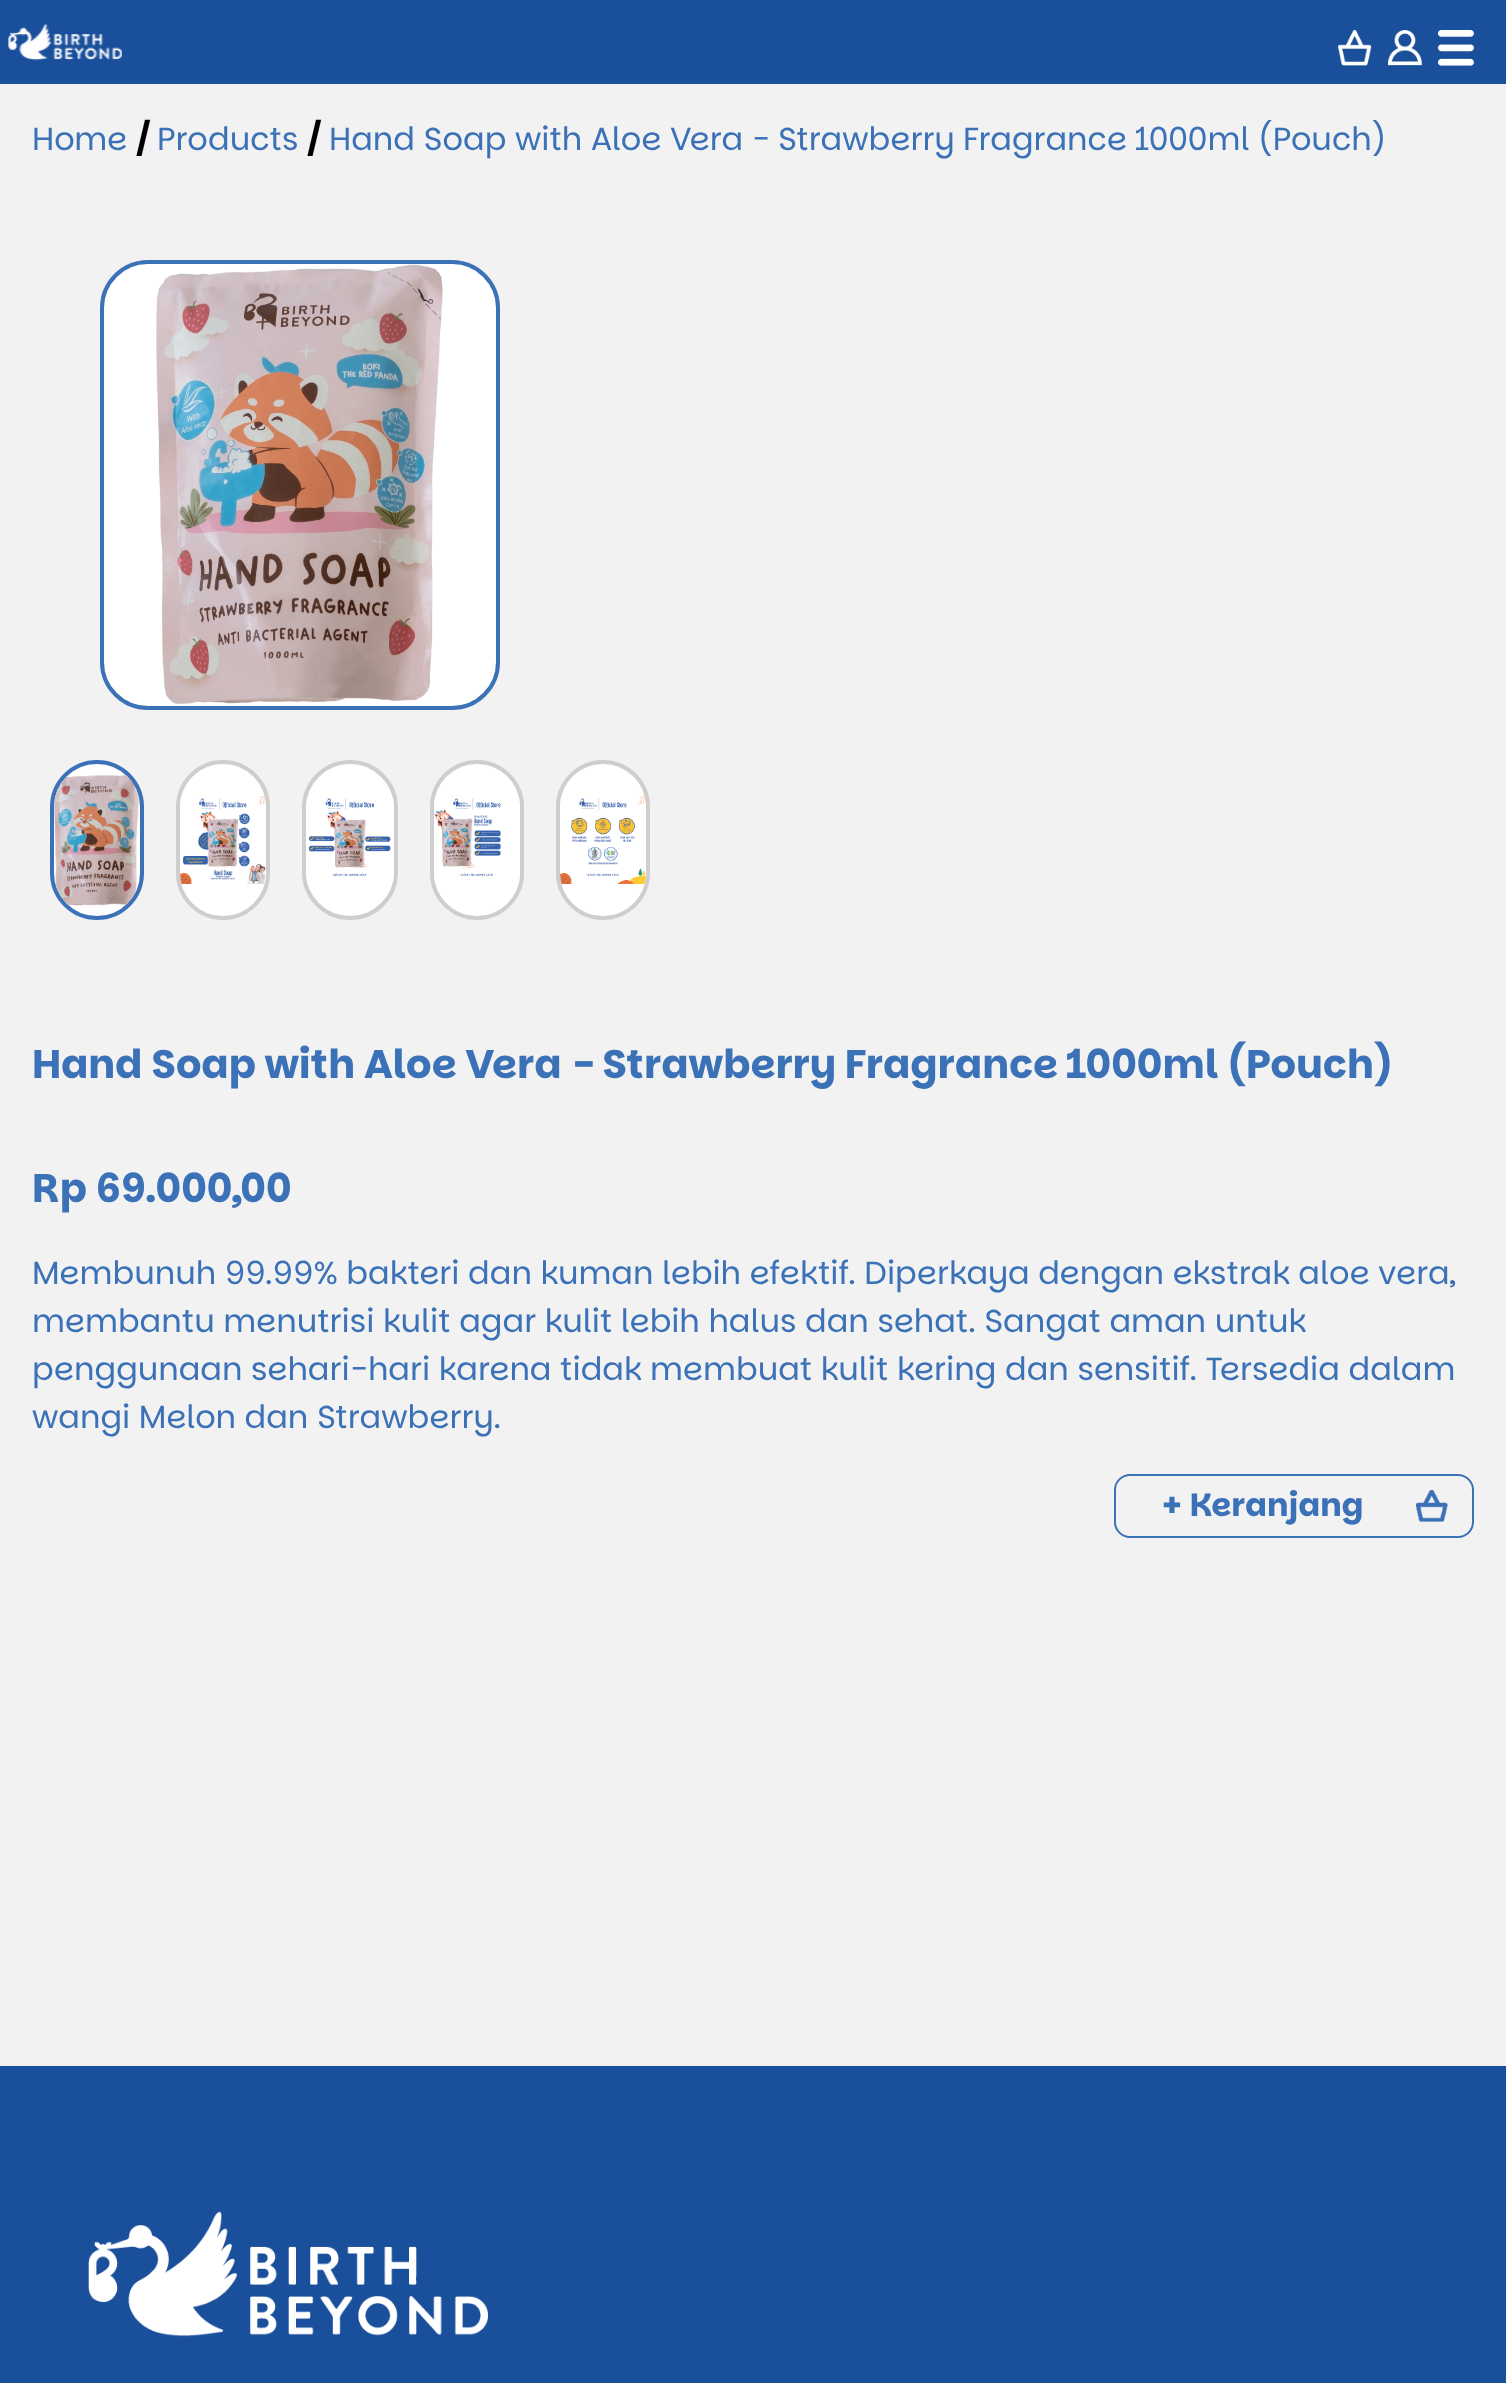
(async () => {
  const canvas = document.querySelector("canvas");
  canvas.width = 1506;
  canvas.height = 2383;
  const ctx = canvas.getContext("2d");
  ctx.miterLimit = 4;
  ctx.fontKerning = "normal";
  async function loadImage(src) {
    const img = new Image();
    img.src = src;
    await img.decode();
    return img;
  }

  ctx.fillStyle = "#f2f2f2";
  ctx.fillRect(0, 0, 1506, 2383);
  ctx.fillStyle = "#1a4f9c";
  ctx.fillRect(0, 0, 1506, 84);
  ctx.drawImage(await loadImage("img/1.png"), 8, 23, 114, 38);
  ctx.drawImage(await loadImage("img/2.png"), 1338, 30, 34, 36);
  ctx.drawImage(await loadImage("img/3.png"), 1388, 30, 34, 36);
  ctx.drawImage(await loadImage("img/4.png"), 1438, 30, 36, 36);
  ctx.fillStyle = "#ffffff";
  ctx.beginPath();
  ctx.roundRect(102, 262, 396, 446, 46);
  ctx.fill();
  ctx.strokeStyle = "#3b71b7";
  ctx.lineWidth = 4;
  ctx.stroke();
  ctx.drawImage(await loadImage("img/5.png"), 156, 264, 287, 440);
  ctx.beginPath();
  ctx.roundRect(52, 762, 90, 156, 45);
  ctx.fill();
  ctx.stroke();
  ctx.drawImage(await loadImage("img/6.png"), 54, 775, 85, 131);
  ctx.beginPath();
  ctx.roundRect(178, 762, 90, 156, 45);
  ctx.fill();
  ctx.strokeStyle = "#cecece";
  ctx.stroke();
  ctx.drawImage(await loadImage("img/7.png"), 180, 796, 86, 88);
  ctx.beginPath();
  ctx.roundRect(304, 762, 92, 156, 46);
  ctx.fill();
  ctx.stroke();
  ctx.drawImage(await loadImage("img/8.png"), 306, 796, 88, 88);
  ctx.beginPath();
  ctx.roundRect(432, 762, 90, 156, 45);
  ctx.fill();
  ctx.stroke();
  ctx.drawImage(await loadImage("img/9.png"), 434, 796, 86, 88);
  ctx.beginPath();
  ctx.roundRect(558, 762, 90, 156, 45);
  ctx.fill();
  ctx.stroke();
  ctx.drawImage(await loadImage("img/10.png"), 560, 796, 86, 88);
  ctx.beginPath();
  ctx.roundRect(1115, 1475, 358, 62, 15);
  ctx.strokeStyle = "#3b71b7";
  ctx.lineWidth = 2;
  ctx.stroke();
  ctx.drawImage(await loadImage("img/11.png"), 1416, 1490, 32, 32);
  ctx.fillStyle = "#1a4f9c";
  ctx.fillRect(0, 2066, 1506, 317);
  ctx.drawImage(await loadImage("img/12.png"), 88, 2211, 400, 126);
  ctx.font = "32px Parkinsans";
  ctx.fillStyle = "#3b71b7";
  ctx.fillText("Home", 32, 150);
  ctx.font = "bold 32px Parkinsans";
  ctx.fillStyle = "#000000";
  ctx.fillText("/", 136, 150);
  ctx.font = "32px Parkinsans";
  ctx.fillStyle = "#3b71b7";
  ctx.fillText("Products", 157, 150);
  ctx.font = "bold 32px Parkinsans";
  ctx.fillStyle = "#000000";
  ctx.fillText("/", 307, 150);
  ctx.font = "32px Parkinsans";
  ctx.fillStyle = "#3b71b7";
  ctx.fillText("Hand Soap with Aloe Vera - Strawberry Fragrance 1000ml (Pouch)", 329, 150);
  ctx.font = "bold 40px Parkinsans";
  ctx.fillText("Hand Soap with Aloe Vera - Strawberry Fragrance 1000ml (Pouch)", 32, 1078);
  ctx.fillText("Rp 69.000,00", 32, 1202);
  ctx.font = "32px Parkinsans";
  for (const [text, x, y] of [
    ["Membunuh 99.99% bakteri dan kuman lebih efektif. Diperkaya dengan ekstrak aloe vera,", 32, 1284],
    ["membantu menutrisi kulit agar kulit lebih halus dan sehat. Sangat aman untuk", 32, 1332],
    ["penggunaan sehari-hari karena tidak membuat kulit kering dan sensitif. Tersedia dalam", 32, 1380],
    ["wangi Melon dan Strawberry.", 32, 1428],
  ]) {
    ctx.fillText(text, x, y);
  }
  ctx.font = "bold 32px Parkinsans";
  ctx.fillText("+ Keranjang", 1161, 1516);
})();
